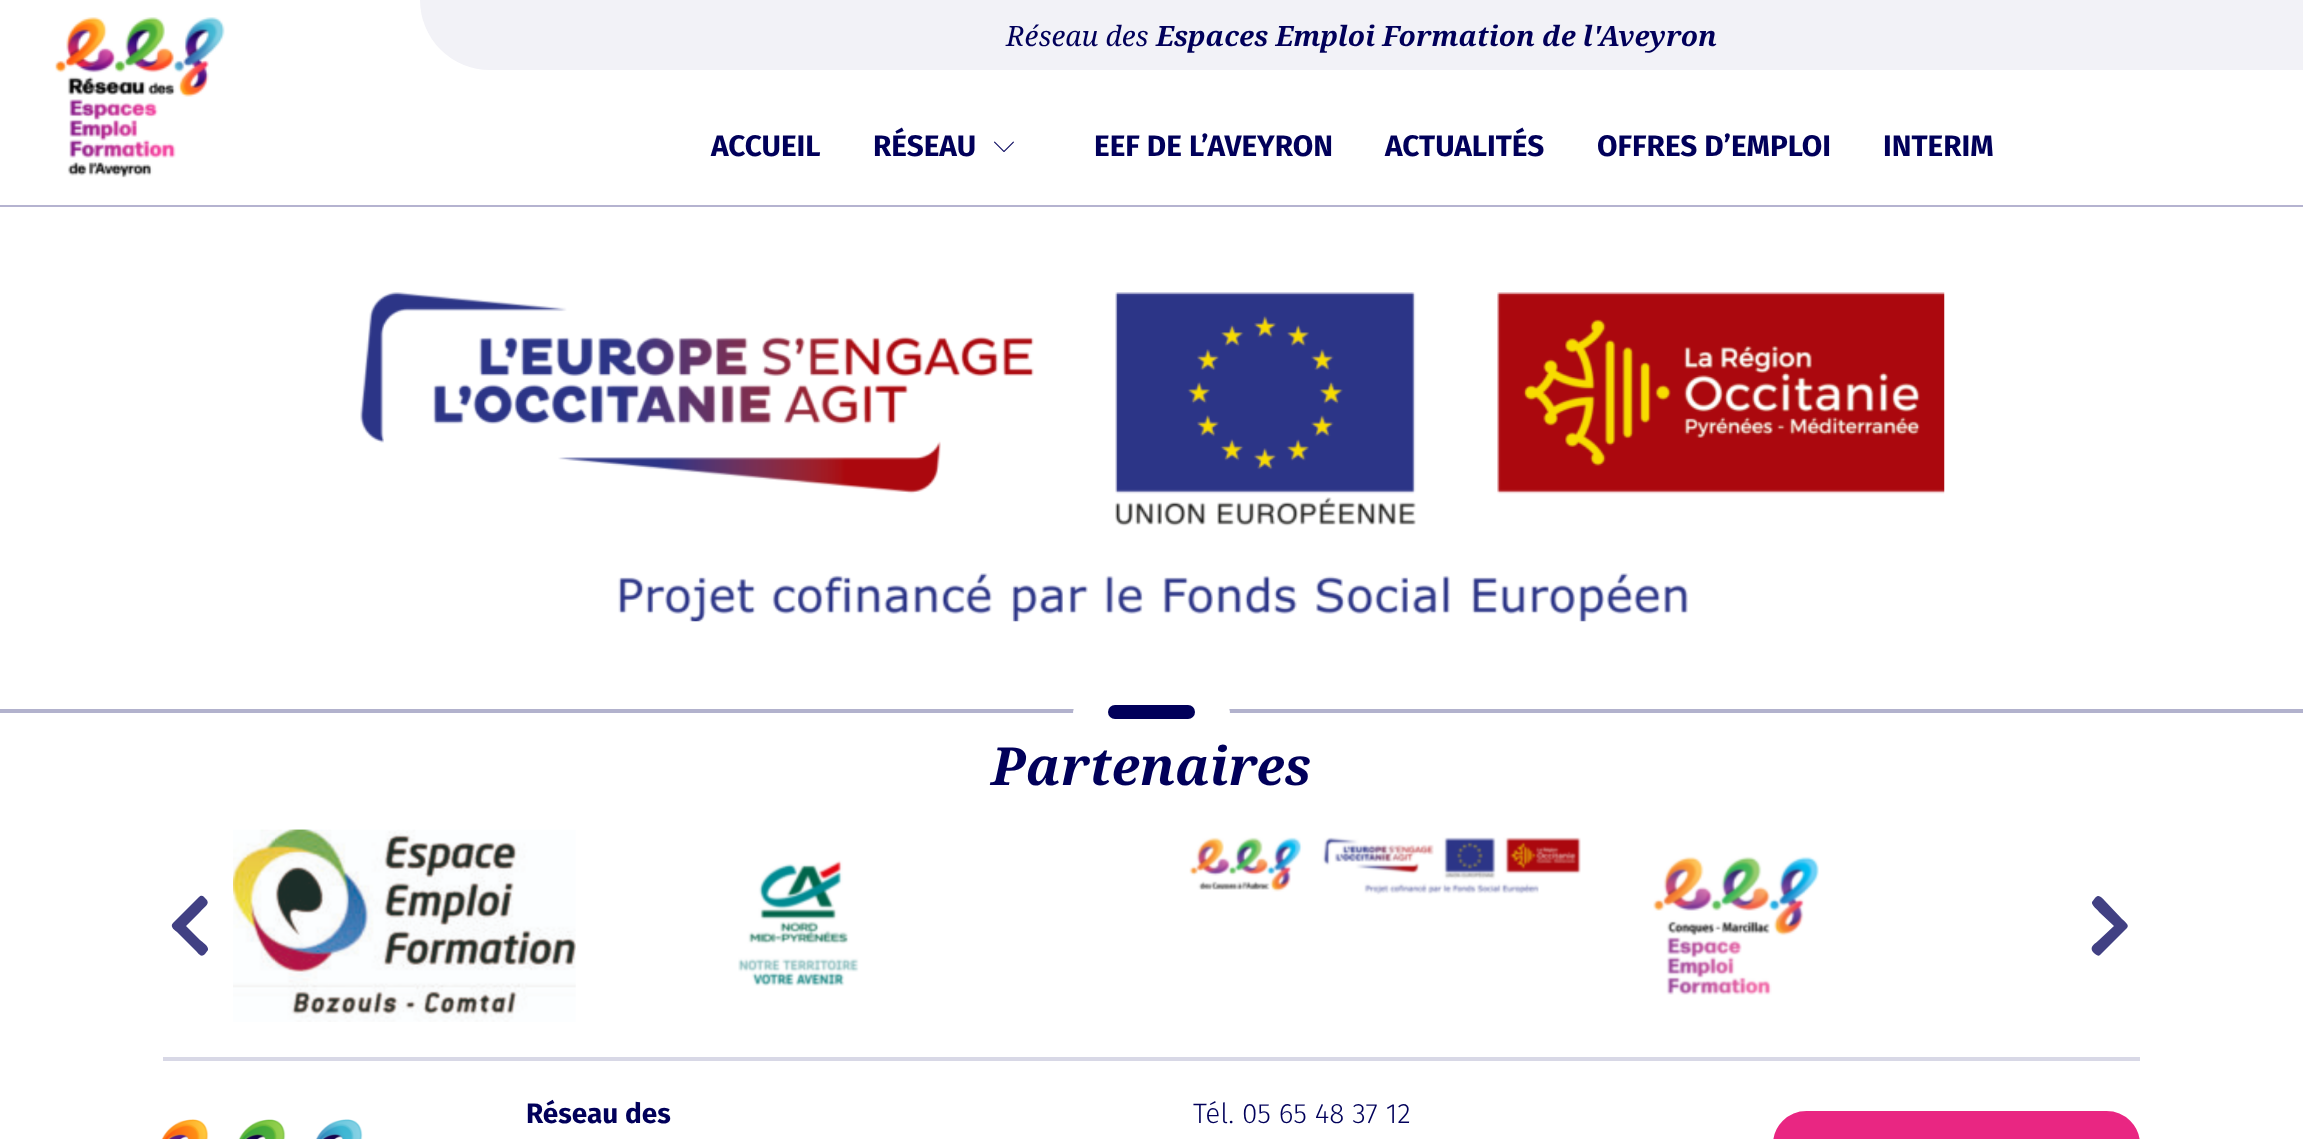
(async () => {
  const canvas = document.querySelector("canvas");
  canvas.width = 2303;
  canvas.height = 1139;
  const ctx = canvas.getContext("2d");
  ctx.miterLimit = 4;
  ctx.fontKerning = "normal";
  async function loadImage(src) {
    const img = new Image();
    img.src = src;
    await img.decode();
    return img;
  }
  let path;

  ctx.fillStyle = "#ffffff";
  ctx.fillRect(0, 0, 2303, 1139);
  ctx.fillStyle = "#b5b3d0";
  ctx.fillRect(0, 205, 2303, 2);
  ctx.drawImage(await loadImage("img/1.png"), 54, 17, 171, 161);
  ctx.fillStyle = "#f2f2f7";
  ctx.beginPath();
  ctx.roundRect(420, 0, 1883, 70, [0, 0, 0, 70]);
  ctx.fill();
  ctx.drawImage(await loadImage("img/2.png"), 994, 141, 20, 11);
  ctx.drawImage(await loadImage("img/3.png"), 360, 292, 1585, 330);
  ctx.fillStyle = "#b2b2cd";
  ctx.fillRect(0, 709, 2303, 4);
  ctx.fillStyle = "#ffffff";
  ctx.beginPath();
  ctx.roundRect(1073, 705, 157, 14, 7);
  ctx.fill();
  ctx.fillStyle = "#01005a";
  ctx.beginPath();
  ctx.roundRect(1108, 705, 87, 14, 7);
  ctx.fill();
  ctx.fillStyle = "#d8d8e6";
  ctx.fillRect(163, 1057, 1977, 4);
  ctx.fillStyle = "#414083";
  path = new Path2D("M173 923L199 897C202 894 204 897 206 899C211 904 204 907 200 912L186 926L200 940C202 942 209 946 208 950L205 954C201 958 199 954 195 950L177 932C176 931 169 927 173 923Z");
  ctx.fill(path);
  ctx.drawImage(await loadImage("img/4.png"), 233, 829, 343, 193);
  ctx.drawImage(await loadImage("img/5.png"), 738, 860, 121, 126);
  ctx.drawImage(await loadImage("img/6.png"), 1189, 837, 392, 58);
  ctx.drawImage(await loadImage("img/7.png"), 1653, 856, 166, 139);
  path = new Path2D("M2127 928L2100 955C2098 957 2095 954 2094 953C2088 947 2095 944 2099 940L2114 926L2099 912C2098 910 2091 905 2092 902L2095 898C2099 894 2101 897 2105 901L2122 919C2124 921 2130 925 2127 928Z");
  ctx.fill(path);
  ctx.drawImage(await loadImage("img/8.png"), 161, 1119, 202, 20);
  ctx.fillStyle = "#e92682";
  ctx.beginPath();
  ctx.roundRect(1775, 1113, 363, 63, 33);
  ctx.fill();
  ctx.strokeStyle = "#e92682";
  ctx.lineWidth = 4;
  ctx.stroke();
  ctx.font = "italic 28px Noto Serif";
  ctx.fillStyle = "#01005a";
  ctx.fillText("Réseau des", 1006, 46);
  ctx.font = "italic bold 28px Noto Serif";
  ctx.fillText("Espaces Emploi Formation de l'Aveyron", 1156, 46);
  ctx.font = "bold 29.75px Fira Sans";
  for (const [text, x, y] of [
    ["ACCUEIL", 711, 156],
    ["RÉSEAU", 873, 156],
    ["EEF DE L’AVEYRON", 1094, 156],
    ["ACTUALITÉS", 1385, 156],
    ["OFFRES D’EMPLOI", 1597, 156],
    ["INTERIM", 1883, 156],
  ]) {
    ctx.fillText(text, x, y);
  }
  ctx.font = "italic bold 52.5px Noto Serif";
  ctx.fillText("Partenaires", 991, 785);
  ctx.font = "bold 28px Fira Sans";
  ctx.fillText("Réseau des", 526, 1123);
  ctx.font = "300 28px Fira Sans";
  ctx.fillText("Tél. 05 65 48 37 12", 1193, 1123);
})();
